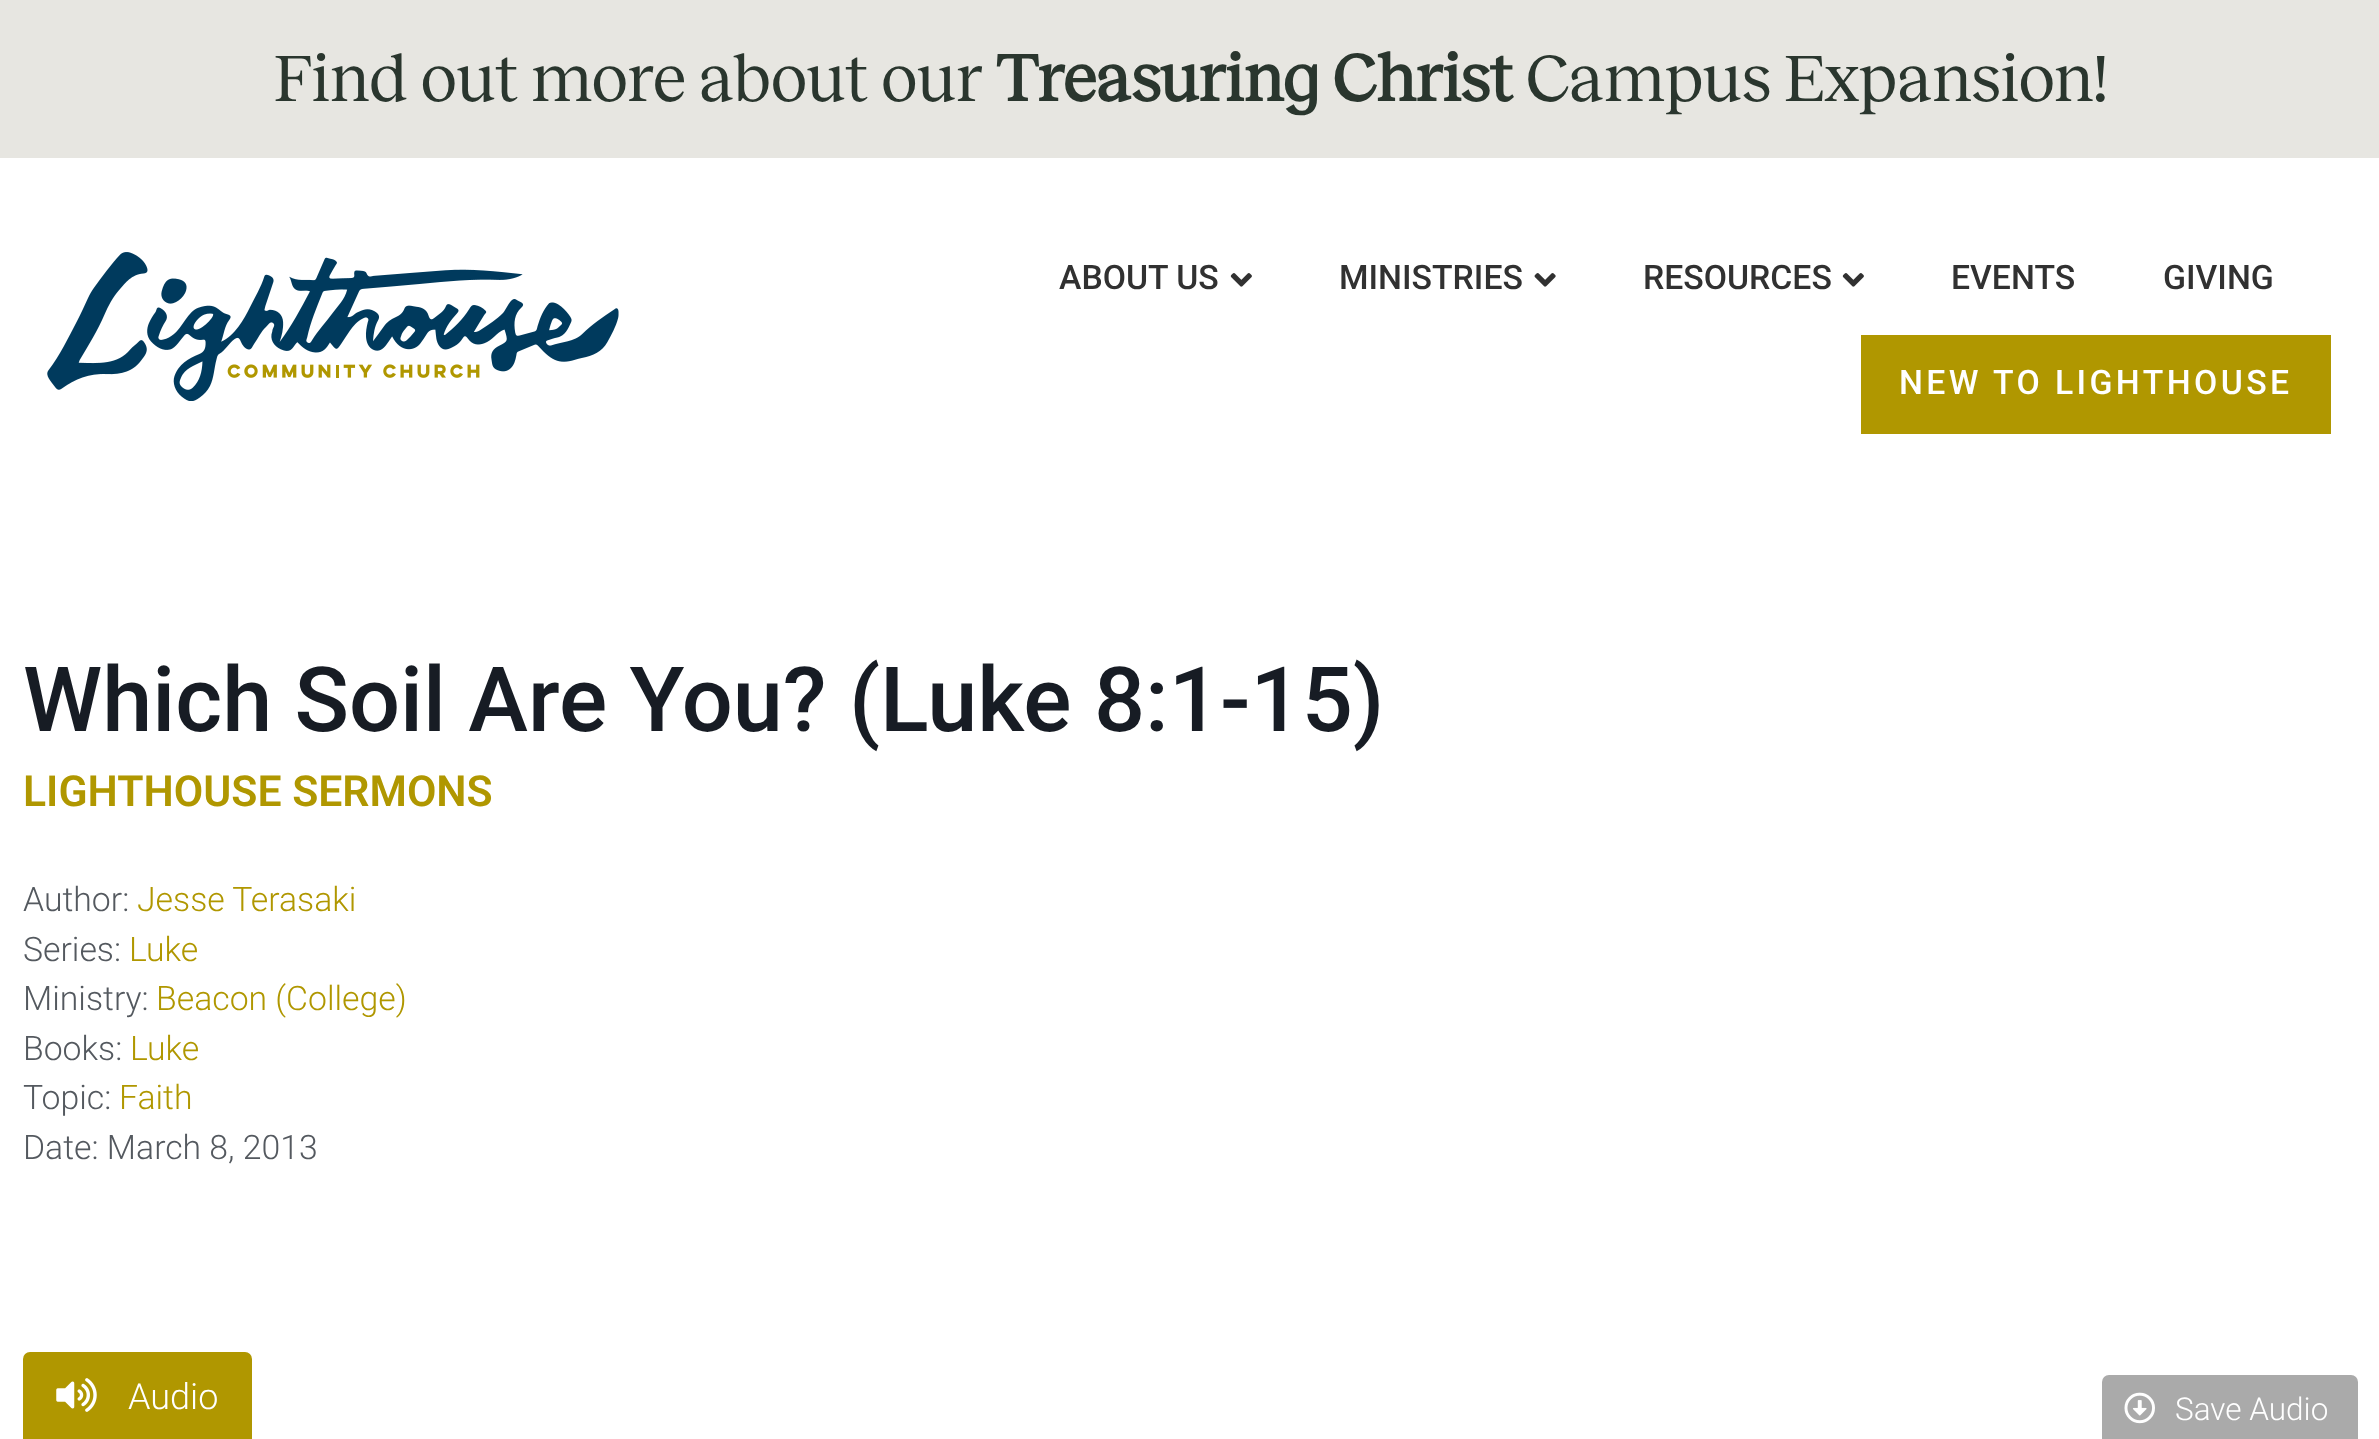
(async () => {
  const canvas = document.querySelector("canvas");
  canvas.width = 2379;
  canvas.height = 1439;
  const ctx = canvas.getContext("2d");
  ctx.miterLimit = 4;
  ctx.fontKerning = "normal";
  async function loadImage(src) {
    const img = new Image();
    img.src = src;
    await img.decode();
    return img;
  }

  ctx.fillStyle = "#ffffff";
  ctx.fillRect(0, 0, 2379, 1439);
  ctx.fillStyle = "#e7e6e1";
  ctx.fillRect(0, 0, 2379, 158);
  ctx.drawImage(await loadImage("img/1.png"), 47, 252, 572, 149);
  ctx.drawImage(await loadImage("img/2.png"), 1230, 273, 22, 14);
  ctx.drawImage(await loadImage("img/3.png"), 1534, 273, 22, 14);
  ctx.drawImage(await loadImage("img/2.png"), 1842, 273, 22, 14);
  ctx.fillStyle = "#b09700";
  ctx.fillRect(1861, 335, 470, 99);
  ctx.beginPath();
  ctx.roundRect(23, 1352, 229, 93, 7);
  ctx.fill();
  ctx.drawImage(await loadImage("img/4.png"), 56, 1378, 41, 34);
  ctx.fillStyle = "#aaaaaa";
  ctx.beginPath();
  ctx.roundRect(2102, 1375, 256, 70, 7);
  ctx.fill();
  ctx.drawImage(await loadImage("img/5.png"), 2124, 1392, 31, 32);
  ctx.font = "67.5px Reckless";
  ctx.fillStyle = "#2a362e";
  ctx.fillText("Find out more about our", 274, 101);
  ctx.font = "bold 67.5px Reckless";
  ctx.fillText("Treasuring Christ", 996, 101);
  ctx.font = "67.5px Reckless";
  ctx.fillText("Campus Expansion!", 1526, 101);
  ctx.font = "500 33.75px Roboto";
  ctx.fillStyle = "#313131";
  for (const [text, x, y] of [
    ["ABOUT US", 1059, 289],
    ["MINISTRIES", 1339, 289],
    ["RESOURCES", 1643, 289],
    ["EVENTS", 1951, 289],
    ["GIVING", 2163, 289],
  ]) {
    ctx.fillText(text, x, y);
  }
  ctx.letterSpacing = "3.4px";
  ctx.fillStyle = "#ffffff";
  ctx.fillText("NEW TO LIGHTHOUSE", 1899, 394);
  ctx.letterSpacing = "0px";
  ctx.font = "500 90px Roboto";
  ctx.fillStyle = "#171c24";
  ctx.fillText("Which Soil Are You? (Luke 8:1-15)", 23, 731);
  ctx.font = "600 42.75px Roboto";
  ctx.fillStyle = "#b09700";
  ctx.fillText("LIGHTHOUSE SERMONS", 23, 806);
  ctx.font = "300 33.75px Roboto";
  ctx.fillStyle = "#54595f";
  ctx.fillText("Author:", 23, 911);
  ctx.fillStyle = "#b09700";
  ctx.fillText("Jesse Terasaki", 137, 911);
  ctx.fillStyle = "#54595f";
  ctx.fillText("Series:", 23, 961);
  ctx.fillStyle = "#b09700";
  ctx.fillText("Luke", 129, 961);
  ctx.fillStyle = "#54595f";
  ctx.fillText("Ministry:", 23, 1010);
  ctx.fillStyle = "#b09700";
  ctx.fillText("Beacon (College)", 156, 1010);
  ctx.fillStyle = "#54595f";
  ctx.fillText("Books:", 23, 1060);
  ctx.fillStyle = "#b09700";
  ctx.fillText("Luke", 130, 1060);
  ctx.fillStyle = "#54595f";
  ctx.fillText("Topic:", 23, 1109);
  ctx.fillStyle = "#b09700";
  ctx.fillText("Faith", 119, 1109);
  ctx.fillStyle = "#54595f";
  ctx.fillText("Date: March 8, 2013", 23, 1159);
  ctx.font = "300 36px Roboto";
  ctx.fillStyle = "#ffffff";
  ctx.fillText("Audio", 128, 1409);
  ctx.font = "300 31.5px Roboto";
  ctx.fillText("Save Audio", 2175, 1420);
})();
